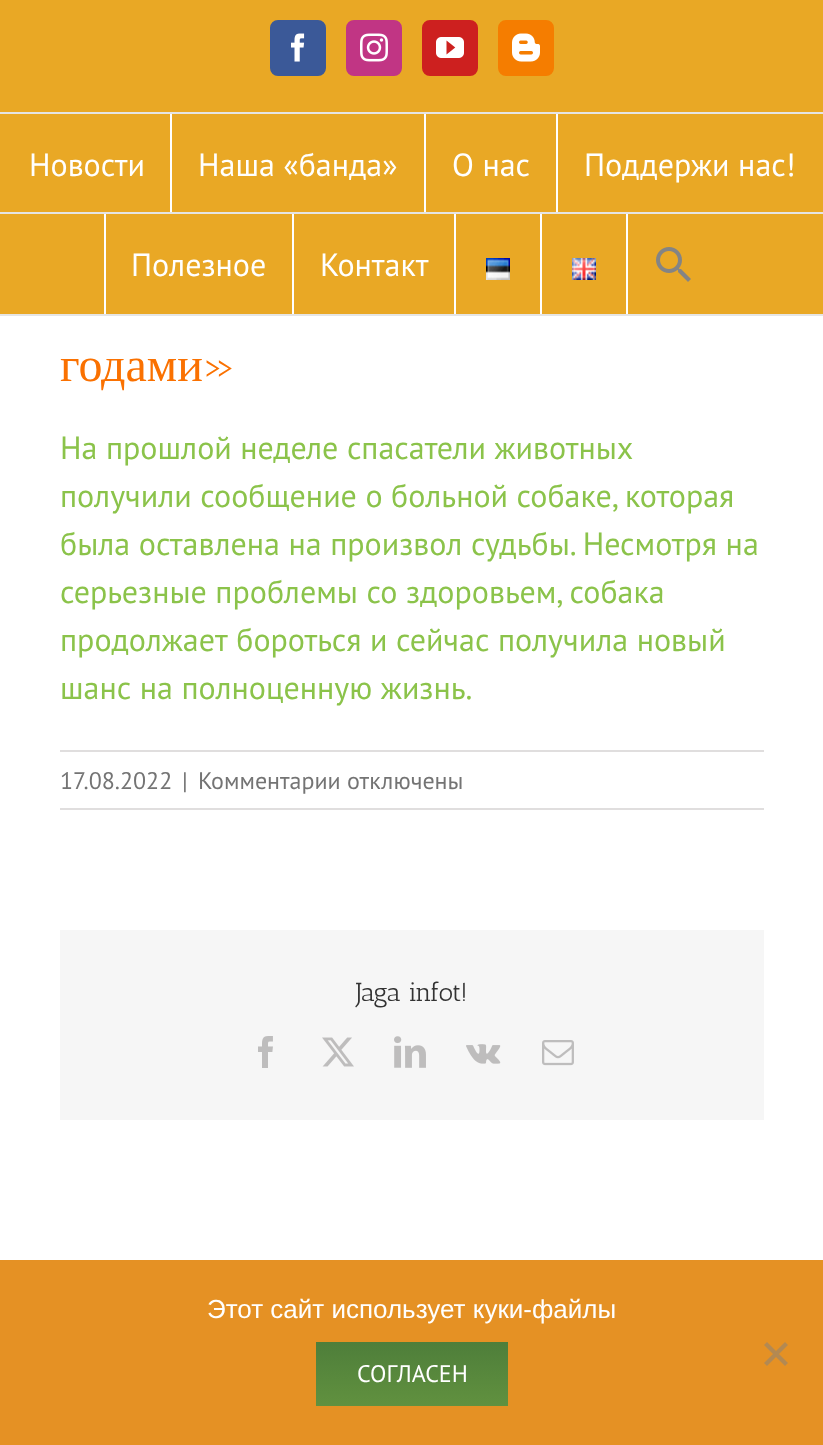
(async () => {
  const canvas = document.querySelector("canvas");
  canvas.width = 823;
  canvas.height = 1445;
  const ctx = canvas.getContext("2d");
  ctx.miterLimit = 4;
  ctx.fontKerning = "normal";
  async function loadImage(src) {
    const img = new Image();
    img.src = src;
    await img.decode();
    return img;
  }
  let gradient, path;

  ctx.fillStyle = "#ffffff";
  ctx.fillRect(0, 0, 823, 1445);
  for (const [x, y, w, h, color] of [
    [0, 0, 823, 314, "#e9a825"],
    [0, 314, 823, 2, "#e5e5e5"],
    [0, 112, 823, 2, "#e5e5e5"],
  ]) {
    ctx.fillStyle = color;
    ctx.fillRect(x, y, w, h);
  }
  ctx.fillStyle = "#3b5998";
  ctx.beginPath();
  ctx.roundRect(271, 21, 54, 54, 7);
  ctx.fill();
  ctx.strokeStyle = "#3b5998";
  ctx.lineWidth = 2;
  ctx.stroke();
  ctx.drawImage(await loadImage("img/1.png"), 291, 33, 14, 29);
  ctx.fillStyle = "#c13584";
  ctx.beginPath();
  ctx.roundRect(347, 21, 54, 54, 7);
  ctx.fill();
  ctx.strokeStyle = "#c13584";
  ctx.stroke();
  ctx.drawImage(await loadImage("img/2.png"), 360, 33, 28, 29);
  ctx.fillStyle = "#cd201f";
  ctx.beginPath();
  ctx.roundRect(423, 21, 54, 54, 7);
  ctx.fill();
  ctx.strokeStyle = "#cd201f";
  ctx.stroke();
  ctx.drawImage(await loadImage("img/3.png"), 436, 37, 28, 21);
  ctx.fillStyle = "#f57d00";
  ctx.beginPath();
  ctx.roundRect(499, 21, 54, 54, 7);
  ctx.fill();
  ctx.strokeStyle = "#f57d00";
  ctx.stroke();
  ctx.drawImage(await loadImage("img/4.png"), 512, 33, 28, 29);
  for (const [x, y, w, h, color] of [
    [170, 114, 2, 100, "#ffffff"],
    [424, 114, 2, 100, "#ffffff"],
    [556, 114, 2, 100, "#ffffff"],
    [0, 212, 823, 2, "#e5e5e5"],
    [104, 214, 2, 100, "#ffffff"],
    [292, 214, 2, 100, "#ffffff"],
    [454, 214, 2, 100, "#ffffff"],
  ]) {
    ctx.fillStyle = color;
    ctx.fillRect(x, y, w, h);
  }
  ctx.drawImage(await loadImage("img/5.png"), 486, 258, 24, 22);
  ctx.fillRect(540, 214, 2, 100);
  ctx.drawImage(await loadImage("img/6.png"), 572, 258, 24, 22);
  ctx.fillRect(626, 214, 2, 100);
  ctx.drawImage(await loadImage("img/7.png"), 656, 247, 35, 35);
  for (const [x, y, w, h, color] of [
    [60, 750, 704, 2, "#e0dede"],
    [60, 808, 704, 2, "#e0dede"],
    [60, 930, 704, 190, "#f6f6f6"],
  ]) {
    ctx.fillStyle = color;
    ctx.fillRect(x, y, w, h);
  }
  ctx.drawImage(await loadImage("img/8.png"), 258, 1036, 15, 32);
  ctx.drawImage(await loadImage("img/9.png"), 322, 1037, 32, 30);
  ctx.drawImage(await loadImage("img/10.png"), 394, 1036, 32, 32);
  ctx.drawImage(await loadImage("img/11.png"), 466, 1044, 35, 20);
  ctx.drawImage(await loadImage("img/12.png"), 542, 1040, 32, 26);
  ctx.fillStyle = "#e59124";
  ctx.fillRect(0, 1260, 823, 185);
  ctx.fillStyle = "#b38952";
  path = new Path2D("M785 1342L788 1345L767 1366L764 1363Z");
  ctx.fill(path);
  path = new Path2D("M764 1345L767 1342L788 1363L785 1366Z");
  ctx.fill(path);
  gradient = ctx.createLinearGradient(412, 1342, 412, 1406);
  gradient.addColorStop(0, "#4e7e3a");
  gradient.addColorStop(1, "#61913f");
  ctx.fillStyle = gradient;
  ctx.fillRect(316, 1342, 192, 64);
  ctx.font = "32px PT Sans";
  ctx.fillStyle = "#ffffff";
  for (const [text, x, y] of [
    ["Новости", 29, 176],
    ["Наша «банда»", 198, 176],
    ["О нас", 452, 176],
    ["Поддержи нас!", 584, 176],
    ["Полезнoe", 131, 276],
    ["Контакт", 320, 276],
  ]) {
    ctx.fillText(text, x, y);
  }
  ctx.font = "48px Liberation Serif";
  ctx.fillStyle = "#fa7101";
  ctx.fillText("годами", 60, 381);
  ctx.font = "48px Antic Slab";
  ctx.fillText("»", 203, 381);
  ctx.font = "32px PT Sans";
  ctx.fillStyle = "#8bc34a";
  for (const [text, x, y] of [
    ["На прошлой неделе спасатели животных", 60, 459],
    ["получили сообщение о больной собаке, которая", 60, 507],
    ["была оставлена на произвол судьбы. Несмотря на", 60, 555],
    ["серьезные проблемы со здоровьем, собака", 60, 603],
    ["продолжает бороться и сейчас получила новый", 60, 651],
    ["шанс на полноценную жизнь.", 60, 699],
  ]) {
    ctx.fillText(text, x, y);
  }
  ctx.font = "24px PT Sans";
  ctx.fillStyle = "#747474";
  for (const [text, x, y] of [
    ["17.08.2022", 60, 789],
    ["|", 182, 789],
    ["Комментарии отключены", 198, 789],
  ]) {
    ctx.fillText(text, x, y);
  }
  ctx.font = "26px Antic Slab";
  ctx.fillStyle = "#333333";
  ctx.fillText("Jaga infot!", 356, 1001);
  ctx.font = "26px Liberation Sans";
  ctx.fillStyle = "#ffffff";
  ctx.fillText("Этот сайт использует куки-файлы", 207, 1318);
  ctx.font = "24px PT Sans";
  ctx.fillText("СОГЛАСЕН", 357, 1382);
})();
